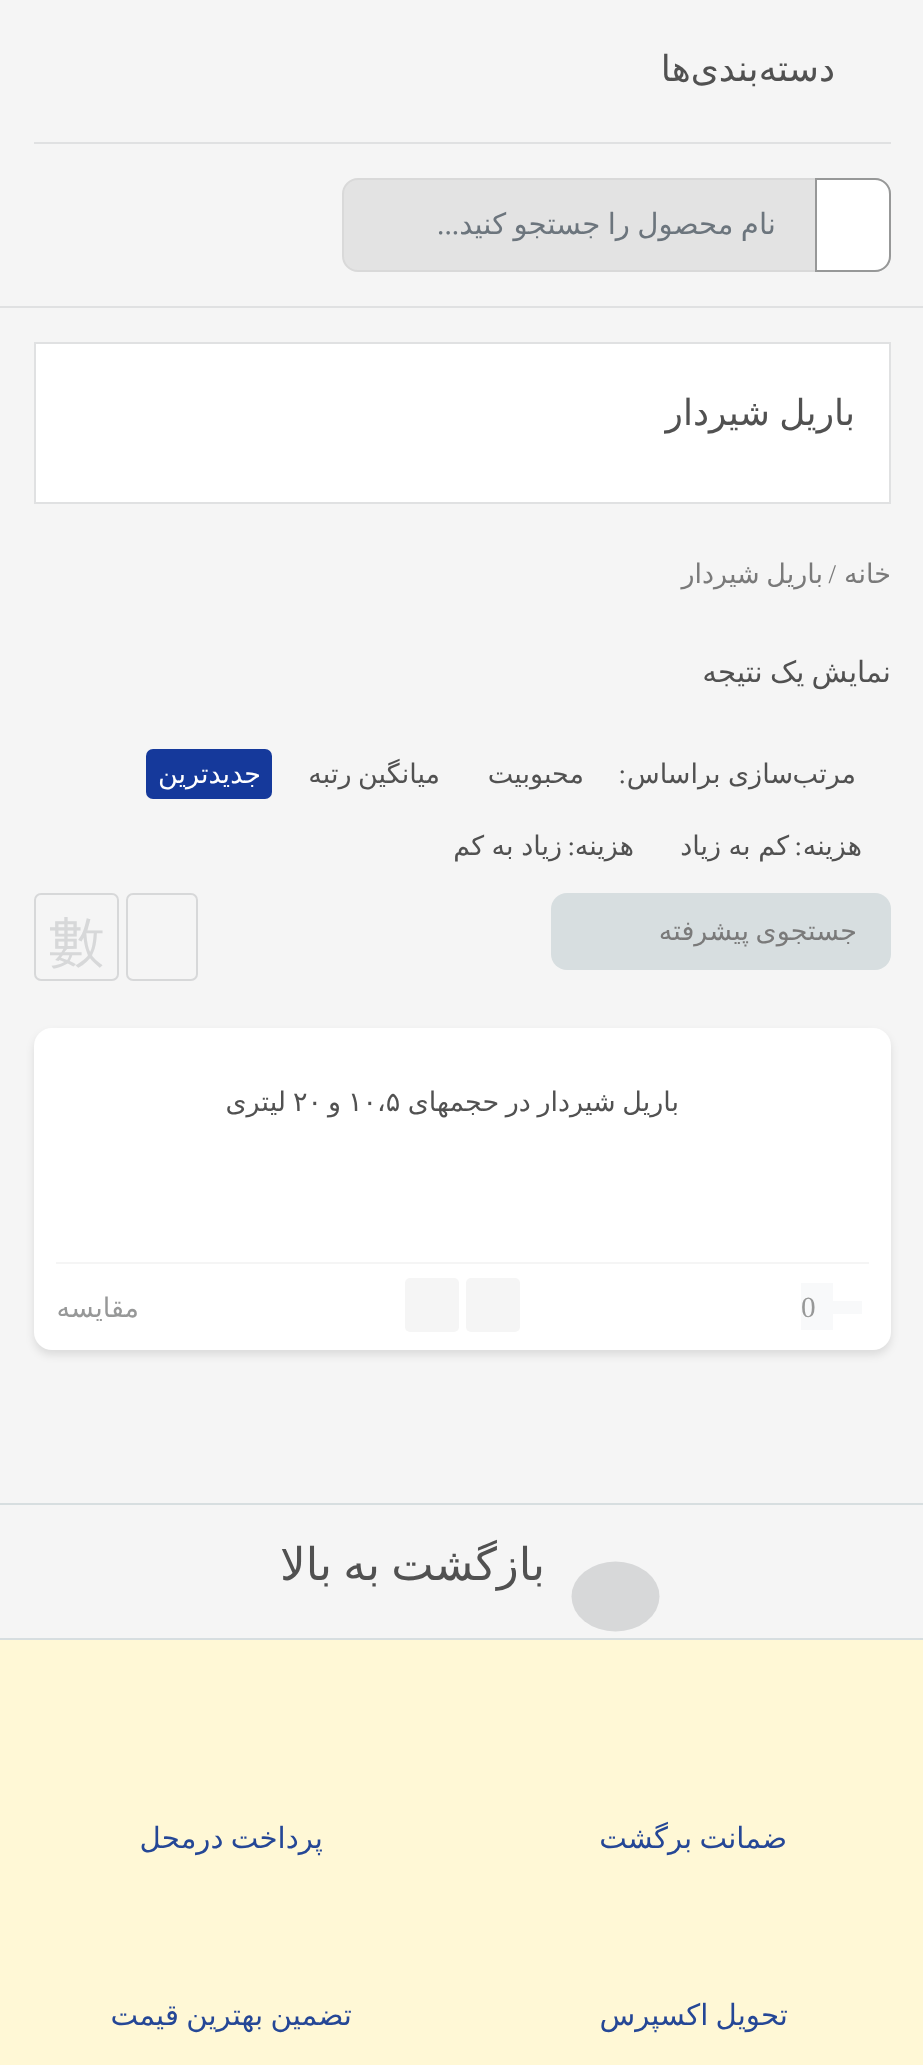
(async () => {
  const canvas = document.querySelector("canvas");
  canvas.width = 923;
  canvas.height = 2065;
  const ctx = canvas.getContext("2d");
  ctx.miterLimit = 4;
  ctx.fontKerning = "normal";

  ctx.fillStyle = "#f5f5f5";
  ctx.fillRect(0, 0, 923, 2065);
  ctx.fillStyle = "#e0e1e2";
  ctx.fillRect(0, 306, 923, 2);
  ctx.fillRect(34, 142, 857, 2);
  ctx.fillStyle = "#e3e3e3";
  ctx.beginPath();
  ctx.roundRect(343, 179, 547, 92, 15);
  ctx.fill();
  ctx.strokeStyle = "#d9d9d9";
  ctx.lineWidth = 2;
  ctx.stroke();
  ctx.fillStyle = "#ffffff";
  ctx.beginPath();
  ctx.roundRect(816, 179, 74, 92, [0, 15, 15, 0]);
  ctx.fill();
  ctx.strokeStyle = "#979898";
  ctx.stroke();
  ctx.beginPath();
  ctx.rect(35, 343, 855, 160);
  ctx.fill();
  ctx.strokeStyle = "#e0e1e2";
  ctx.stroke();
  ctx.fillStyle = "#15399b";
  ctx.beginPath();
  ctx.roundRect(146, 749, 126, 50, 7);
  ctx.fill();
  ctx.fillStyle = "#d7dee0";
  ctx.beginPath();
  ctx.roundRect(551, 893, 340, 77, 16);
  ctx.fill();
  ctx.beginPath();
  ctx.roundRect(127, 894, 70, 86, 6);
  ctx.strokeStyle = "#d7d8d9";
  ctx.stroke();
  ctx.beginPath();
  ctx.roundRect(35, 894, 83, 86, 6);
  ctx.stroke();
  ctx.fillStyle = "rgba(0, 0, 0, 0.1)";
  ctx.filter = "blur(4.5px)";
  ctx.beginPath();
  ctx.roundRect(34, 1033, 857, 322, 18);
  ctx.fill();
  ctx.filter = "none";
  ctx.fillStyle = "#ffffff";
  ctx.beginPath();
  ctx.roundRect(34, 1028, 857, 322, 18);
  ctx.fill();
  for (const [x, y, w, h, color] of [
    [56, 1262, 813, 2, "#f5f5f5"],
    [833, 1301, 29, 13, "#f8f9fa"],
    [801, 1283, 32, 47, "#f8f9fa"],
  ]) {
    ctx.fillStyle = color;
    ctx.fillRect(x, y, w, h);
  }
  ctx.fillStyle = "#f5f5f5";
  ctx.beginPath();
  ctx.roundRect(466, 1278, 54, 54, 5);
  ctx.fill();
  ctx.beginPath();
  ctx.roundRect(405, 1278, 54, 54, 5);
  ctx.fill();
  for (const [x, y, w, h, color] of [
    [0, 1640, 923, 425, "#fff8d6"],
    [0, 1503, 923, 2, "#d7dee0"],
    [0, 1638, 923, 2, "#d7dee0"],
  ]) {
    ctx.fillStyle = color;
    ctx.fillRect(x, y, w, h);
  }
  ctx.fillStyle = "#d7d8d9";
  ctx.beginPath();
  ctx.ellipse(615.5, 1596.5, 44, 35, 0, 0, Math.PI * 2);
  ctx.fill();
  ctx.direction = "rtl";
  ctx.font = "36px DejaVu Sans";
  ctx.fillStyle = "#515151";
  ctx.fillText("دسته‌بندی‌ها", 835, 81);
  ctx.save();
  ctx.beginPath();
  ctx.rect(369, 207, 407, 36);
  ctx.clip();
  ctx.wordSpacing = "-2px";
  ctx.font = "29.25px DejaVu Sans";
  ctx.fillStyle = "#6c757d";
  ctx.fillText("نام محصول را جستجو کنید", 776, 234);
  ctx.restore();
  ctx.font = "29.25px Liberation Serif";
  ctx.fillStyle = "#6c757d";
  ctx.fillText("...", 459, 234);
  ctx.wordSpacing = "-2px";
  ctx.font = "36px DejaVu Sans";
  ctx.fillStyle = "#515151";
  ctx.fillText("باریل شیردار", 855, 425);
  ctx.wordSpacing = "0px";
  ctx.font = "27px DejaVu Sans";
  ctx.fillStyle = "#7a7a7a";
  ctx.fillText("خانه", 891, 583);
  ctx.font = "27px Liberation Serif";
  ctx.fillText("/", 836, 583);
  ctx.wordSpacing = "-2px";
  ctx.font = "27px DejaVu Sans";
  ctx.fillText("باریل شیردار", 823, 583);
  ctx.font = "29.25px DejaVu Sans";
  ctx.fillStyle = "#515151";
  ctx.fillText("نمایش یک نتیجه", 891, 682);
  ctx.wordSpacing = "0px";
  ctx.font = "27px DejaVu Sans";
  ctx.fillText("مرتب", 856, 783);
  ctx.wordSpacing = "-1px";
  ctx.fillText("سازی براساس", 793, 783);
  ctx.wordSpacing = "0px";
  ctx.font = "27px Liberation Serif";
  ctx.fillText(":", 626, 783);
  ctx.font = "27px DejaVu Sans";
  ctx.fillText("محبوبیت", 584, 783);
  ctx.wordSpacing = "-2px";
  ctx.fillText("میانگین رتبه", 440, 783);
  ctx.wordSpacing = "0px";
  ctx.fillStyle = "#ffffff";
  ctx.fillText("جدیدترین", 261, 783);
  ctx.fillStyle = "#515151";
  ctx.fillText("هزینه", 862, 855);
  ctx.font = "27px Liberation Serif";
  ctx.fillText(":", 802, 855);
  ctx.wordSpacing = "-1px";
  ctx.font = "27px DejaVu Sans";
  ctx.fillText("کم به زیاد", 789, 855);
  ctx.wordSpacing = "0px";
  ctx.fillText("هزینه", 634, 855);
  ctx.font = "27px Liberation Serif";
  ctx.fillText(":", 575, 855);
  ctx.wordSpacing = "-1px";
  ctx.font = "27px DejaVu Sans";
  ctx.fillText("زیاد به کم", 562, 855);
  ctx.wordSpacing = "-2px";
  ctx.fillStyle = "#7a7a7a";
  ctx.fillText("جستجوی پیشرفته", 857, 940);
  ctx.wordSpacing = "0px";
  ctx.direction = "ltr";
  ctx.font = "500 58px WenQuanYi Zen Hei";
  ctx.fillStyle = "#d7d8d9";
  ctx.fillText("數", 47, 961);
  ctx.save();
  ctx.beginPath();
  ctx.rect(56, 1073, 624, 117);
  ctx.clip();
  ctx.wordSpacing = "-2px";
  ctx.direction = "rtl";
  ctx.font = "27px DejaVu Sans";
  ctx.fillStyle = "#515151";
  ctx.fillText("باریل شیردار در حجمهای", 679, 1111);
  ctx.restore();
  ctx.font = "27px DejaVu Sans";
  ctx.fillStyle = "#515151";
  ctx.fillText("۱۰،۵", 348, 1111);
  ctx.direction = "rtl";
  ctx.fillText("و", 341, 1111);
  ctx.direction = "ltr";
  ctx.fillText("۲۰", 293, 1111);
  ctx.direction = "rtl";
  ctx.fillText("لیتری", 286, 1111);
  ctx.direction = "ltr";
  ctx.font = "29.25px Liberation Serif";
  ctx.fillStyle = "#979898";
  ctx.fillText("0", 801, 1317);
  ctx.direction = "rtl";
  ctx.font = "27px DejaVu Sans";
  ctx.fillText("مقایسه", 139, 1317);
  ctx.wordSpacing = "-3px";
  ctx.font = "45px DejaVu Sans";
  ctx.fillStyle = "#515151";
  ctx.fillText("بازگشت به بالا", 545, 1580);
  ctx.wordSpacing = "-2px";
  ctx.font = "29.25px DejaVu Sans";
  ctx.fillStyle = "#254796";
  for (const [text, x, y] of [
    ["ضمانت برگشت", 787, 1848],
    ["پرداخت درمحل", 323, 1848],
    ["تحویل اکسپرس", 788, 2025],
    ["تضمین بهترین قیمت", 352, 2025],
  ]) {
    ctx.fillText(text, x, y);
  }
})();
